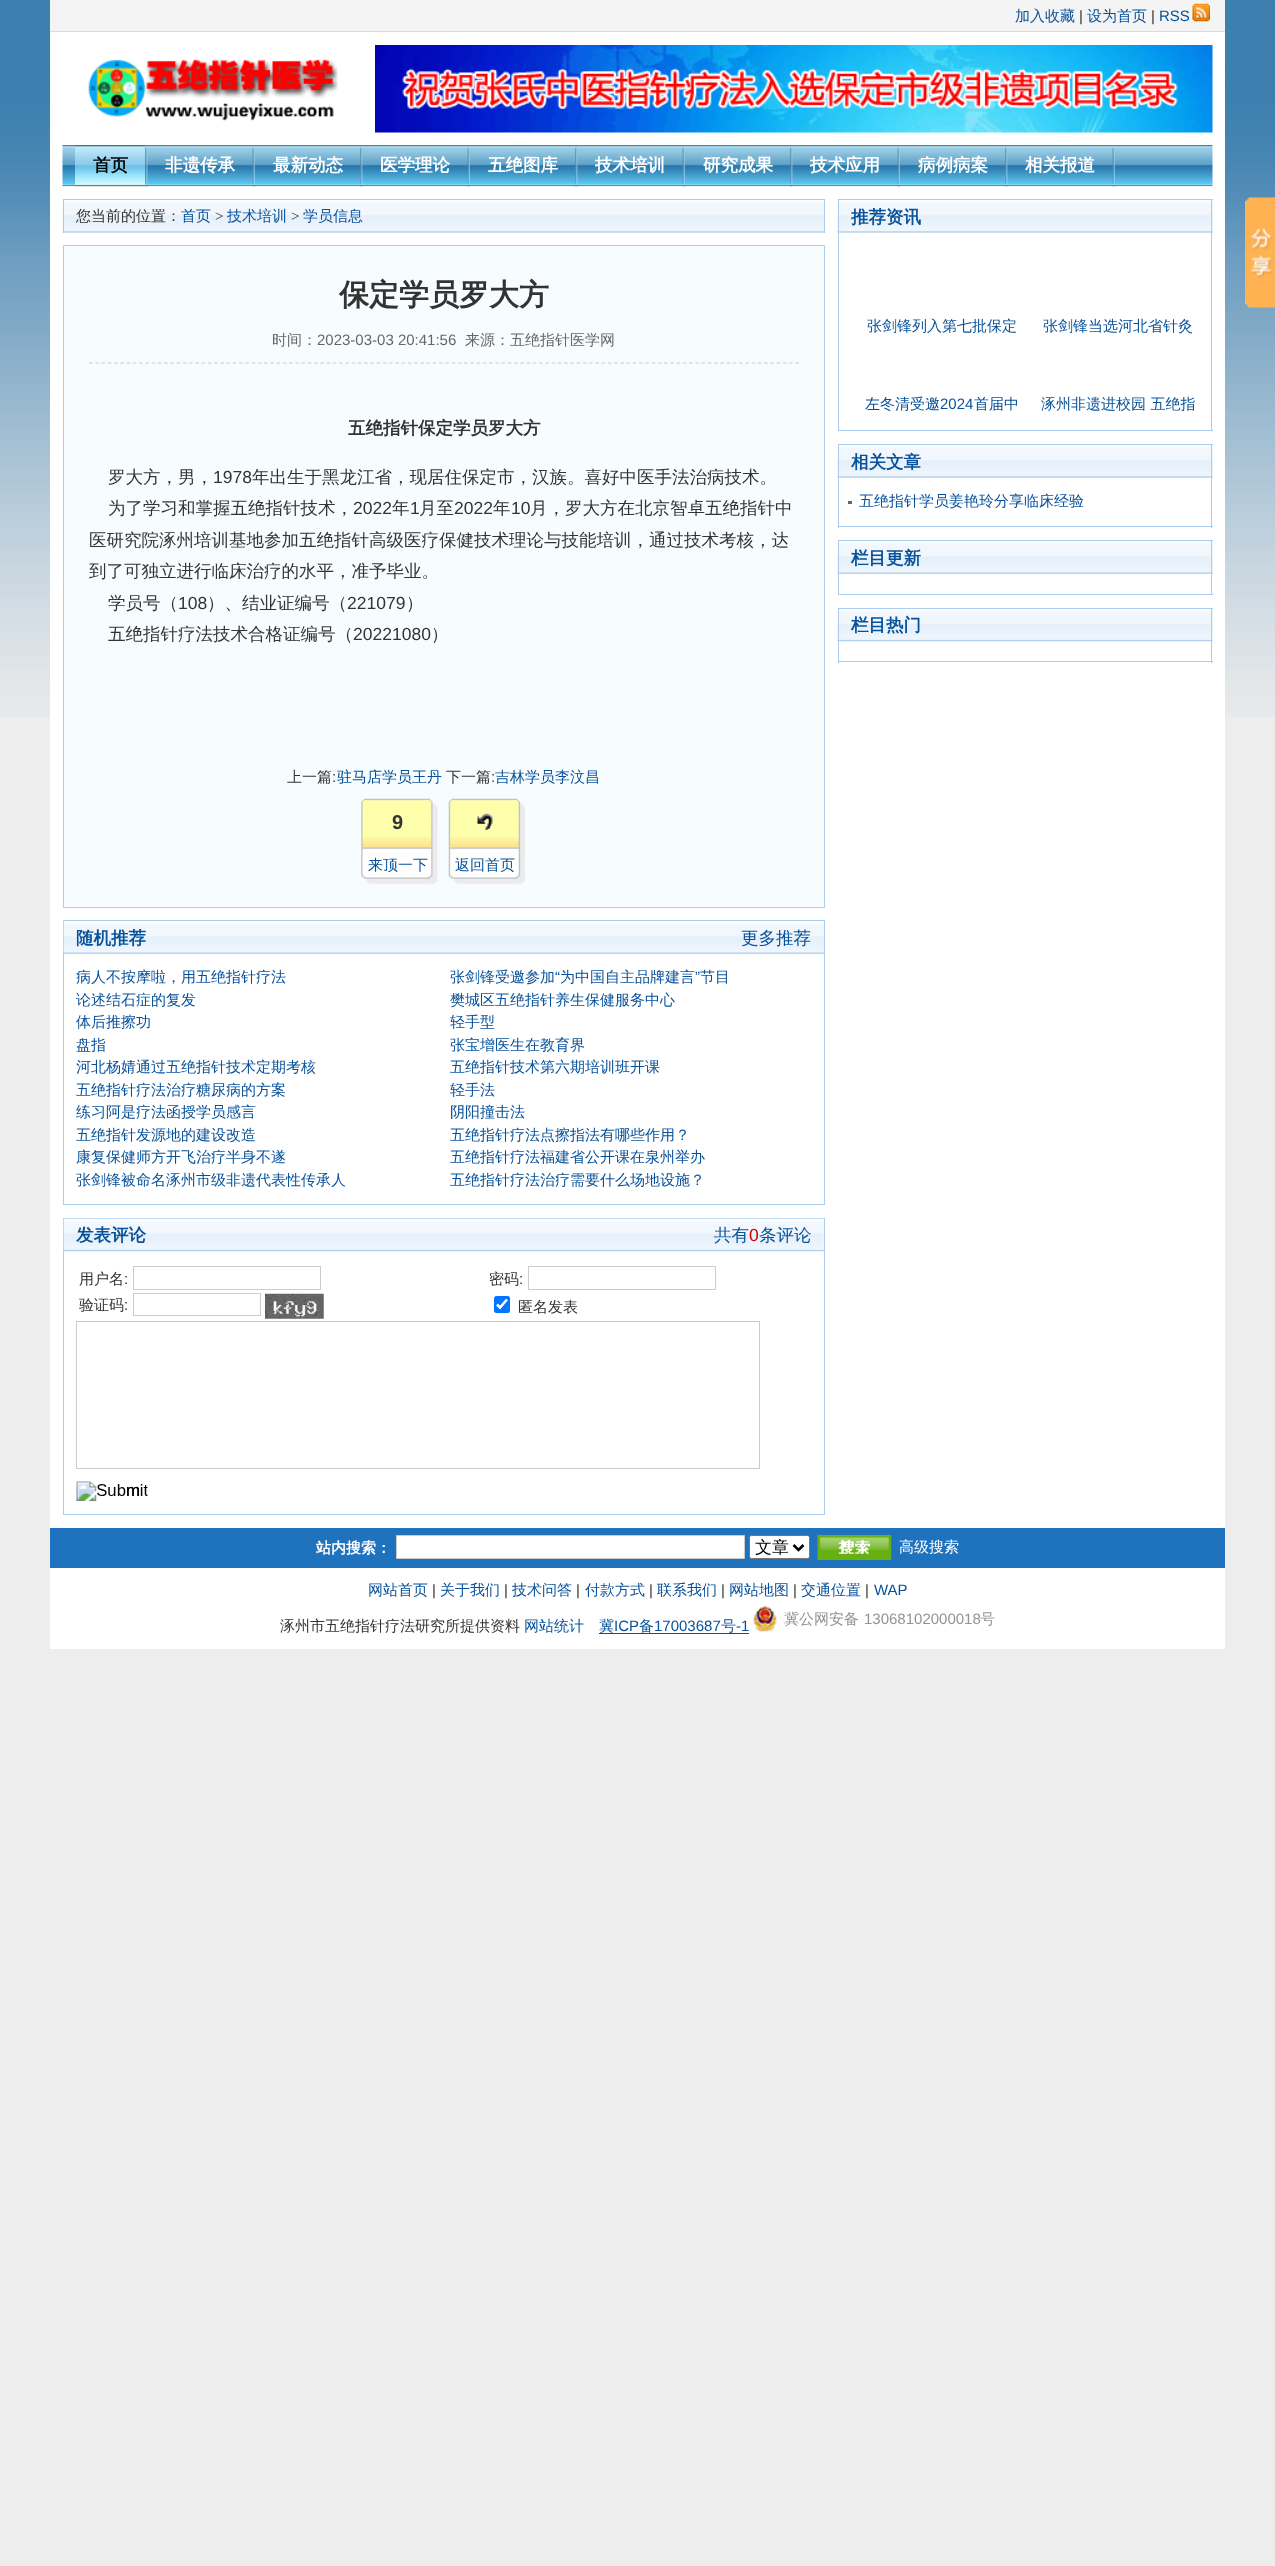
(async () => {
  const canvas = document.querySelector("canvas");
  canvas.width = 1275;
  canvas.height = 2566;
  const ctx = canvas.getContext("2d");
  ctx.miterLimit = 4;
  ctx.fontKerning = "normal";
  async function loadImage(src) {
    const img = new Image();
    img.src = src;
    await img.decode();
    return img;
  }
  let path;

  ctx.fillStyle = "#ededed";
  ctx.fillRect(0, 0, 1275, 2566);
  ctx.drawImage(await loadImage("img/1.png"), 0, 0, 1275, 717);
  for (const [x, y, w, h, color] of [
    [50, 32, 1175, 1617, "#ffffff"],
    [50, 31, 1175, 1, "#dcdcdc"],
    [50, 0, 1175, 31, "#f4f4f4"],
  ]) {
    ctx.fillStyle = color;
    ctx.fillRect(x, y, w, h);
  }
  ctx.drawImage(await loadImage("img/2.png"), 1192, 3, 18, 19);
  ctx.drawImage(await loadImage("img/3.png"), 88, 59, 250, 62);
  ctx.drawImage(await loadImage("img/4.png"), 375, 45, 838, 88);
  ctx.drawImage(await loadImage("img/5.png"), 62, 145, 1151, 42);
  ctx.drawImage(await loadImage("img/6.png"), 145, 147, 3, 40);
  ctx.drawImage(await loadImage("img/7.png"), 75, 145, 70, 42);
  ctx.drawImage(await loadImage("img/8.png"), 252, 147, 3, 40);
  ctx.drawImage(await loadImage("img/6.png"), 360, 147, 3, 40);
  ctx.drawImage(await loadImage("img/8.png"), 467, 147, 3, 40);
  ctx.drawImage(await loadImage("img/6.png"), 575, 147, 3, 40);
  ctx.drawImage(await loadImage("img/8.png"), 682, 147, 3, 40);
  ctx.drawImage(await loadImage("img/6.png"), 790, 147, 3, 40);
  ctx.drawImage(await loadImage("img/8.png"), 897, 147, 3, 40);
  ctx.drawImage(await loadImage("img/6.png"), 1005, 147, 3, 40);
  ctx.drawImage(await loadImage("img/8.png"), 1112, 147, 3, 40);
  ctx.fillStyle = "#e9f2fb";
  ctx.fillRect(64, 232, 760, 1);
  ctx.drawImage(await loadImage("img/9.png"), 62, 200, 762, 33);
  for (const [x, y, w, h, color] of [
    [63, 199, 762, 1, "#aaccee"],
    [824, 199, 1, 34, "#aaccee"],
    [63, 199, 1, 34, "#aaccee"],
  ]) {
    ctx.fillStyle = color;
    ctx.fillRect(x, y, w, h);
  }
  ctx.fillStyle = "#f7fdff";
  ctx.beginPath();
  ctx.rect(63.5, 245.5, 761, 662);
  ctx.fill();
  ctx.strokeStyle = "#aaccee";
  ctx.stroke();
  path = new Path2D("M89 363H799");
  ctx.strokeStyle = "#cccccc";
  ctx.lineWidth = 1.2;
  ctx.setLineDash([3.75, 2.5]);
  ctx.stroke(path);
  ctx.drawImage(await loadImage("img/10.png"), 361, 798, 77, 86);
  ctx.drawImage(await loadImage("img/11.png"), 448, 798, 77, 86);
  ctx.drawImage(await loadImage("img/12.png"), 477, 813, 16, 17);
  ctx.strokeStyle = "#aaccee";
  ctx.lineWidth = 1;
  ctx.setLineDash([]);
  ctx.strokeRect(63.5, 920.5, 761, 284);
  ctx.fillStyle = "#e9f2fb";
  ctx.fillRect(64, 921, 760, 33);
  ctx.drawImage(await loadImage("img/13.png"), 63, 921, 761, 33);
  ctx.strokeRect(63.5, 1218.5, 761, 296);
  ctx.drawImage(await loadImage("img/14.png"), 63, 1218, 761, 34);
  ctx.strokeStyle = "#cccccc";
  ctx.strokeRect(133.5, 1266.5, 187, 23);
  ctx.strokeRect(528.5, 1266.5, 187, 23);
  ctx.strokeRect(133.5, 1293.5, 127, 22);
  ctx.drawImage(await loadImage("img/15.png"), 265, 1293, 59, 26);
  ctx.fillStyle = "#0075ff";
  ctx.beginPath();
  ctx.roundRect(494, 1296, 16, 17, 2.5);
  ctx.fill();
  path = new Path2D("M497 1304.5L500 1307.5L507 1299.5");
  ctx.strokeStyle = "#ffffff";
  ctx.lineWidth = 2.6;
  ctx.stroke(path);
  ctx.strokeStyle = "#cccccc";
  ctx.lineWidth = 1;
  ctx.strokeRect(76.5, 1321.5, 683, 147);
  ctx.drawImage(await loadImage("img/16.png"), 76, 1481, 72, 21);
  ctx.fillStyle = "#e9f2fb";
  ctx.fillRect(839, 200, 374, 33);
  ctx.drawImage(await loadImage("img/17.png"), 837, 200, 376, 33);
  for (const [x, y, w, h, color] of [
    [838, 199, 375, 1, "#aaccee"],
    [1211, 199, 1, 232, "#aaccee"],
    [838, 199, 1, 34, "#aaccee"],
    [838, 430, 375, 1, "#aaccee"],
    [838, 233, 1, 198, "#aaccee"],
    [839, 445, 374, 33, "#e9f2fb"],
  ]) {
    ctx.fillStyle = color;
    ctx.fillRect(x, y, w, h);
  }
  ctx.drawImage(await loadImage("img/17.png"), 837, 445, 376, 33);
  for (const [x, y, w, h, color] of [
    [838, 444, 375, 1, "#aaccee"],
    [1211, 444, 1, 84, "#aaccee"],
    [838, 444, 1, 34, "#aaccee"],
    [838, 526, 375, 1, "#aaccee"],
    [838, 478, 1, 50, "#aaccee"],
    [848, 501, 4, 3, "#666666"],
    [839, 541, 374, 33, "#e9f2fb"],
  ]) {
    ctx.fillStyle = color;
    ctx.fillRect(x, y, w, h);
  }
  ctx.drawImage(await loadImage("img/18.png"), 837, 541, 376, 33);
  for (const [x, y, w, h, color] of [
    [838, 540, 375, 1, "#aaccee"],
    [1211, 540, 1, 55, "#aaccee"],
    [838, 540, 1, 34, "#aaccee"],
    [838, 594, 375, 1, "#aaccee"],
    [838, 574, 1, 21, "#aaccee"],
    [1212, 609, 1, 32, "#e9f2fb"],
  ]) {
    ctx.fillStyle = color;
    ctx.fillRect(x, y, w, h);
  }
  ctx.drawImage(await loadImage("img/19.png"), 837, 608, 376, 34);
  for (const [x, y, w, h, color] of [
    [838, 608, 375, 1, "#aaccee"],
    [1211, 608, 1, 55, "#aaccee"],
    [838, 608, 1, 33, "#aaccee"],
    [838, 661, 375, 1, "#aaccee"],
    [838, 641, 1, 22, "#aaccee"],
  ]) {
    ctx.fillStyle = color;
    ctx.fillRect(x, y, w, h);
  }
  ctx.drawImage(await loadImage("img/20.png"), 1245, 197, 30, 111);
  ctx.fillStyle = "#1f73be";
  ctx.fillRect(50, 1528, 1175, 40);
  ctx.fillStyle = "#ffffff";
  ctx.beginPath();
  ctx.rect(396.5, 1535.5, 348, 23);
  ctx.fill();
  ctx.stroke();
  ctx.beginPath();
  ctx.roundRect(749.5, 1535.5, 60, 23, 2);
  ctx.fill();
  ctx.strokeStyle = "#767676";
  ctx.stroke();
  path = new Path2D("M793.5 1545L798.5 1550L803.5 1545");
  ctx.strokeStyle = "#000000";
  ctx.lineWidth = 2.5;
  ctx.stroke(path);
  ctx.drawImage(await loadImage("img/21.png"), 817, 1535, 75, 25);
  ctx.fillStyle = "#07519a";
  ctx.fillRect(599, 1633, 150, 1);
  ctx.drawImage(await loadImage("img/22.png"), 753, 1606, 24, 26);
  ctx.font = "500 15px WenQuanYi Zen Hei";
  ctx.fillText("加入收藏", 1015, 21);
  ctx.font = "15px Liberation Sans";
  ctx.fillStyle = "#333333";
  ctx.fillText("|", 1079, 21);
  ctx.font = "500 15px WenQuanYi Zen Hei";
  ctx.fillStyle = "#07519a";
  ctx.fillText("设为首页", 1087, 21);
  ctx.font = "15px Liberation Sans";
  ctx.fillStyle = "#333333";
  ctx.fillText("|", 1151, 21);
  ctx.fillStyle = "#07519a";
  ctx.fillText("RSS", 1159, 21);
  ctx.font = "bold 17.5px WenQuanYi Zen Hei";
  ctx.fillStyle = "#000000";
  ctx.fillText("首页", 93, 171);
  ctx.fillStyle = "#ffffff";
  for (const [text, x, y] of [
    ["非遗传承", 165, 171],
    ["最新动态", 273, 171],
    ["医学理论", 380, 171],
    ["五绝图库", 488, 171],
    ["技术培训", 595, 171],
    ["研究成果", 703, 171],
    ["技术应用", 810, 171],
    ["病例病案", 918, 171],
    ["相关报道", 1025, 171],
  ]) {
    ctx.fillText(text, x, y);
  }
  ctx.font = "500 15px WenQuanYi Zen Hei";
  ctx.fillStyle = "#333333";
  ctx.fillText("您当前的位置：", 76, 221);
  ctx.fillStyle = "#07519a";
  ctx.fillText("首页", 181, 221);
  ctx.font = "15px Liberation Serif";
  ctx.fillStyle = "#333333";
  ctx.fillText(">", 215, 221);
  ctx.font = "500 15px WenQuanYi Zen Hei";
  ctx.fillStyle = "#07519a";
  ctx.fillText("技术培训", 227, 221);
  ctx.font = "15px Liberation Serif";
  ctx.fillStyle = "#333333";
  ctx.fillText(">", 291, 221);
  ctx.font = "500 15px WenQuanYi Zen Hei";
  ctx.fillStyle = "#07519a";
  ctx.fillText("学员信息", 303, 221);
  ctx.font = "bold 30px WenQuanYi Zen Hei";
  ctx.fillStyle = "#333333";
  ctx.fillText("保定学员罗大方", 339, 305);
  ctx.font = "500 15px WenQuanYi Zen Hei";
  ctx.fillStyle = "#666666";
  ctx.fillText("时间：", 272, 345);
  ctx.font = "15px Liberation Sans";
  ctx.fillText("2023-03-03 20:41:56", 317, 345);
  ctx.font = "500 15px WenQuanYi Zen Hei";
  ctx.fillText("来源：五绝指针医学网", 465, 345);
  ctx.font = "bold 17.5px WenQuanYi Zen Hei";
  ctx.fillStyle = "#333333";
  ctx.fillText("五绝指针保定学员罗大方", 348, 434);
  ctx.font = "500 17.5px WenQuanYi Zen Hei";
  ctx.fillText("罗大方，男，", 108, 483);
  ctx.font = "17.5px Liberation Sans";
  ctx.fillText("1978", 213, 483);
  ctx.font = "500 17.5px WenQuanYi Zen Hei";
  ctx.fillText("年出生于黑龙江省，现居住保定市，汉族。喜好中医手法治病技术。", 252, 483);
  ctx.fillText("为了学习和掌握五绝指针技术，", 108, 514);
  ctx.font = "17.5px Liberation Sans";
  ctx.fillText("2022", 353, 514);
  ctx.font = "500 17.5px WenQuanYi Zen Hei";
  ctx.fillText("年", 392, 514);
  ctx.font = "17.5px Liberation Sans";
  ctx.fillText("1", 410, 514);
  ctx.font = "500 17.5px WenQuanYi Zen Hei";
  ctx.fillText("月至", 419, 514);
  ctx.font = "17.5px Liberation Sans";
  ctx.fillText("2022", 454, 514);
  ctx.font = "500 17.5px WenQuanYi Zen Hei";
  ctx.fillText("年", 493, 514);
  ctx.font = "17.5px Liberation Sans";
  ctx.fillText("10", 511, 514);
  ctx.font = "500 17.5px WenQuanYi Zen Hei";
  for (const [text, x, y] of [
    ["月，罗大方在北京智卓五绝指针中", 530, 514],
    ["医研究院涿州培训基地参加五绝指针高级医疗保健技术理论与技能培训，通过技术考核，达", 89, 546],
    ["到了可独立进行临床治疗的水平，准予毕业。", 89, 577],
    ["学员号（", 108, 609],
  ]) {
    ctx.fillText(text, x, y);
  }
  ctx.font = "17.5px Liberation Sans";
  ctx.fillText("108", 178, 609);
  ctx.font = "500 17.5px WenQuanYi Zen Hei";
  ctx.fillText("）、结业证编号（", 207, 609);
  ctx.font = "17.5px Liberation Sans";
  ctx.fillText("221079", 347, 609);
  ctx.font = "500 17.5px WenQuanYi Zen Hei";
  ctx.fillText("）", 406, 609);
  ctx.fillText("五绝指针疗法技术合格证编号（", 108, 640);
  ctx.font = "17.5px Liberation Sans";
  ctx.fillText("20221080", 353, 640);
  ctx.font = "500 17.5px WenQuanYi Zen Hei";
  ctx.fillText("）", 431, 640);
  ctx.font = "500 15px WenQuanYi Zen Hei";
  ctx.fillText("上一篇", 287, 782);
  ctx.font = "15px Liberation Sans";
  ctx.fillText(":", 332, 782);
  ctx.font = "500 15px WenQuanYi Zen Hei";
  ctx.fillStyle = "#07519a";
  ctx.fillText("驻马店学员王丹", 337, 782);
  ctx.fillStyle = "#333333";
  ctx.fillText("下一篇", 446, 782);
  ctx.font = "15px Liberation Sans";
  ctx.fillText(":", 491, 782);
  ctx.font = "500 15px WenQuanYi Zen Hei";
  ctx.fillStyle = "#07519a";
  ctx.fillText("吉林学员李汶昌", 495, 782);
  ctx.font = "bold 20px Liberation Sans";
  ctx.fillStyle = "#333333";
  ctx.fillText("9", 392, 829);
  ctx.font = "500 15px WenQuanYi Zen Hei";
  ctx.fillStyle = "#07519a";
  ctx.fillText("来顶一下", 368, 870);
  ctx.fillText("返回首页", 455, 870);
  ctx.font = "bold 17.5px WenQuanYi Zen Hei";
  ctx.fillText("随机推荐", 76, 944);
  ctx.font = "500 17.5px WenQuanYi Zen Hei";
  ctx.fillText("更多推荐", 741, 944);
  ctx.font = "500 15px WenQuanYi Zen Hei";
  for (const [text, x, y] of [
    ["病人不按摩啦，用五绝指针疗法", 76, 982],
    ["论述结石症的复发", 76, 1005],
    ["体后推擦功", 76, 1027],
    ["盘指", 76, 1050],
    ["河北杨婧通过五绝指针技术定期考核", 76, 1072],
    ["五绝指针疗法治疗糖尿病的方案", 76, 1095],
    ["练习阿是疗法函授学员感言", 76, 1117],
    ["五绝指针发源地的建设改造", 76, 1140],
    ["康复保健师方开飞治疗半身不遂", 76, 1162],
    ["张剑锋被命名涿州市级非遗代表性传承人", 76, 1185],
    ["张剑锋受邀参加", 450, 982],
  ]) {
    ctx.fillText(text, x, y);
  }
  ctx.font = "15px Liberation Sans";
  ctx.fillText("“", 555, 982);
  ctx.font = "500 15px WenQuanYi Zen Hei";
  ctx.fillText("为中国自主品牌建言", 560, 982);
  ctx.font = "15px Liberation Sans";
  ctx.fillText("”", 695, 982);
  ctx.font = "500 15px WenQuanYi Zen Hei";
  for (const [text, x, y] of [
    ["节目", 700, 982],
    ["樊城区五绝指针养生保健服务中心", 450, 1005],
    ["轻手型", 450, 1027],
    ["张宝增医生在教育界", 450, 1050],
    ["五绝指针技术第六期培训班开课", 450, 1072],
    ["轻手法", 450, 1095],
    ["阴阳撞击法", 450, 1117],
    ["五绝指针疗法点擦指法有哪些作用？", 450, 1140],
    ["五绝指针疗法福建省公开课在泉州举办", 450, 1162],
    ["五绝指针疗法治疗需要什么场地设施？", 450, 1185],
  ]) {
    ctx.fillText(text, x, y);
  }
  ctx.font = "bold 17.5px WenQuanYi Zen Hei";
  ctx.fillText("发表评论", 76, 1241);
  ctx.font = "500 17.5px WenQuanYi Zen Hei";
  ctx.fillText("共有", 714, 1241);
  ctx.font = "17.5px Liberation Sans";
  ctx.fillStyle = "#cc0000";
  ctx.fillText("0", 749, 1241);
  ctx.font = "500 17.5px WenQuanYi Zen Hei";
  ctx.fillStyle = "#07519a";
  ctx.fillText("条评论", 759, 1241);
  ctx.font = "500 15px WenQuanYi Zen Hei";
  ctx.fillStyle = "#333333";
  ctx.fillText("用户名", 79, 1284);
  ctx.font = "15px Liberation Sans";
  ctx.fillText(":", 124, 1284);
  ctx.font = "500 15px WenQuanYi Zen Hei";
  ctx.fillText("密码", 489, 1284);
  ctx.font = "15px Liberation Sans";
  ctx.fillText(":", 519, 1284);
  ctx.font = "500 15px WenQuanYi Zen Hei";
  ctx.fillText("验证码", 79, 1310);
  ctx.font = "15px Liberation Sans";
  ctx.fillText(":", 124, 1310);
  ctx.font = "500 15px WenQuanYi Zen Hei";
  ctx.fillText("匿名发表", 518, 1312);
  ctx.font = "17px Liberation Sans";
  ctx.fillStyle = "#000000";
  ctx.fillText("m", 126, 1496);
  ctx.font = "bold 17.5px WenQuanYi Zen Hei";
  ctx.fillStyle = "#07519a";
  ctx.fillText("推荐资讯", 851, 223);
  ctx.font = "500 15px WenQuanYi Zen Hei";
  for (const [text, x, y] of [
    ["张剑锋列入第七批保定", 867, 331],
    ["张剑锋当选河北省针灸", 1043, 331],
    ["左冬清受邀", 865, 409],
  ]) {
    ctx.fillText(text, x, y);
  }
  ctx.font = "15px Liberation Sans";
  ctx.fillText("2024", 940, 409);
  ctx.font = "500 15px WenQuanYi Zen Hei";
  ctx.fillText("首届中", 974, 409);
  ctx.fillText("涿州非遗进校园 五绝指", 1041, 409);
  ctx.font = "bold 17.5px WenQuanYi Zen Hei";
  ctx.fillText("相关文章", 851, 468);
  ctx.font = "500 15px WenQuanYi Zen Hei";
  ctx.fillText("五绝指针学员姜艳玲分享临床经验", 859, 506);
  ctx.font = "bold 17.5px WenQuanYi Zen Hei";
  ctx.fillText("栏目更新", 851, 564);
  ctx.fillText("栏目热门", 851, 631);
  ctx.font = "bold 15px WenQuanYi Zen Hei";
  ctx.fillStyle = "#ffffff";
  ctx.fillText("站内搜索：", 316, 1553);
  ctx.font = "500 17px WenQuanYi Zen Hei";
  ctx.fillStyle = "#000000";
  ctx.fillText("文章", 755, 1553);
  ctx.font = "500 15px WenQuanYi Zen Hei";
  ctx.fillStyle = "#ffffff";
  ctx.fillText("高级搜索", 899, 1552);
  ctx.fillStyle = "#07519a";
  ctx.fillText("网站首页", 368, 1595);
  ctx.font = "15px Liberation Sans";
  ctx.fillStyle = "#333333";
  ctx.fillText("|", 432, 1595);
  ctx.font = "500 15px WenQuanYi Zen Hei";
  ctx.fillStyle = "#07519a";
  ctx.fillText("关于我们", 440, 1595);
  ctx.font = "15px Liberation Sans";
  ctx.fillStyle = "#333333";
  ctx.fillText("|", 504, 1595);
  ctx.font = "500 15px WenQuanYi Zen Hei";
  ctx.fillStyle = "#07519a";
  ctx.fillText("技术问答", 512, 1595);
  ctx.font = "15px Liberation Sans";
  ctx.fillStyle = "#333333";
  ctx.fillText("|", 576, 1595);
  ctx.font = "500 15px WenQuanYi Zen Hei";
  ctx.fillStyle = "#07519a";
  ctx.fillText("付款方式", 585, 1595);
  ctx.font = "15px Liberation Sans";
  ctx.fillStyle = "#333333";
  ctx.fillText("|", 649, 1595);
  ctx.font = "500 15px WenQuanYi Zen Hei";
  ctx.fillStyle = "#07519a";
  ctx.fillText("联系我们", 657, 1595);
  ctx.font = "15px Liberation Sans";
  ctx.fillStyle = "#333333";
  ctx.fillText("|", 721, 1595);
  ctx.font = "500 15px WenQuanYi Zen Hei";
  ctx.fillStyle = "#07519a";
  ctx.fillText("网站地图", 729, 1595);
  ctx.font = "15px Liberation Sans";
  ctx.fillStyle = "#333333";
  ctx.fillText("|", 793, 1595);
  ctx.font = "500 15px WenQuanYi Zen Hei";
  ctx.fillStyle = "#07519a";
  ctx.fillText("交通位置", 801, 1595);
  ctx.font = "15px Liberation Sans";
  ctx.fillStyle = "#333333";
  ctx.fillText("|", 865, 1595);
  ctx.fillStyle = "#07519a";
  ctx.fillText("WAP", 874, 1595);
  ctx.font = "500 15px WenQuanYi Zen Hei";
  ctx.fillStyle = "#333333";
  ctx.fillText("涿州市五绝指针疗法研究所提供资料", 280, 1631);
  ctx.fillStyle = "#07519a";
  ctx.fillText("网站统计", 524, 1631);
  ctx.fillText("冀", 599, 1631);
  ctx.font = "15px Liberation Sans";
  ctx.fillText("ICP", 614, 1631);
  ctx.font = "500 15px WenQuanYi Zen Hei";
  ctx.fillText("备", 639, 1631);
  ctx.font = "15px Liberation Sans";
  ctx.fillText("17003687", 654, 1631);
  ctx.font = "500 15px WenQuanYi Zen Hei";
  ctx.fillText("号", 721, 1631);
  ctx.font = "15px Liberation Sans";
  ctx.fillText("-1", 736, 1631);
  ctx.font = "500 15px WenQuanYi Zen Hei";
  ctx.fillStyle = "#939393";
  ctx.fillText("冀公网安备", 784, 1624);
  ctx.font = "15px Liberation Sans";
  ctx.fillText("13068102000018", 864, 1624);
  ctx.font = "500 15px WenQuanYi Zen Hei";
  ctx.fillText("号", 980, 1624);
})();
